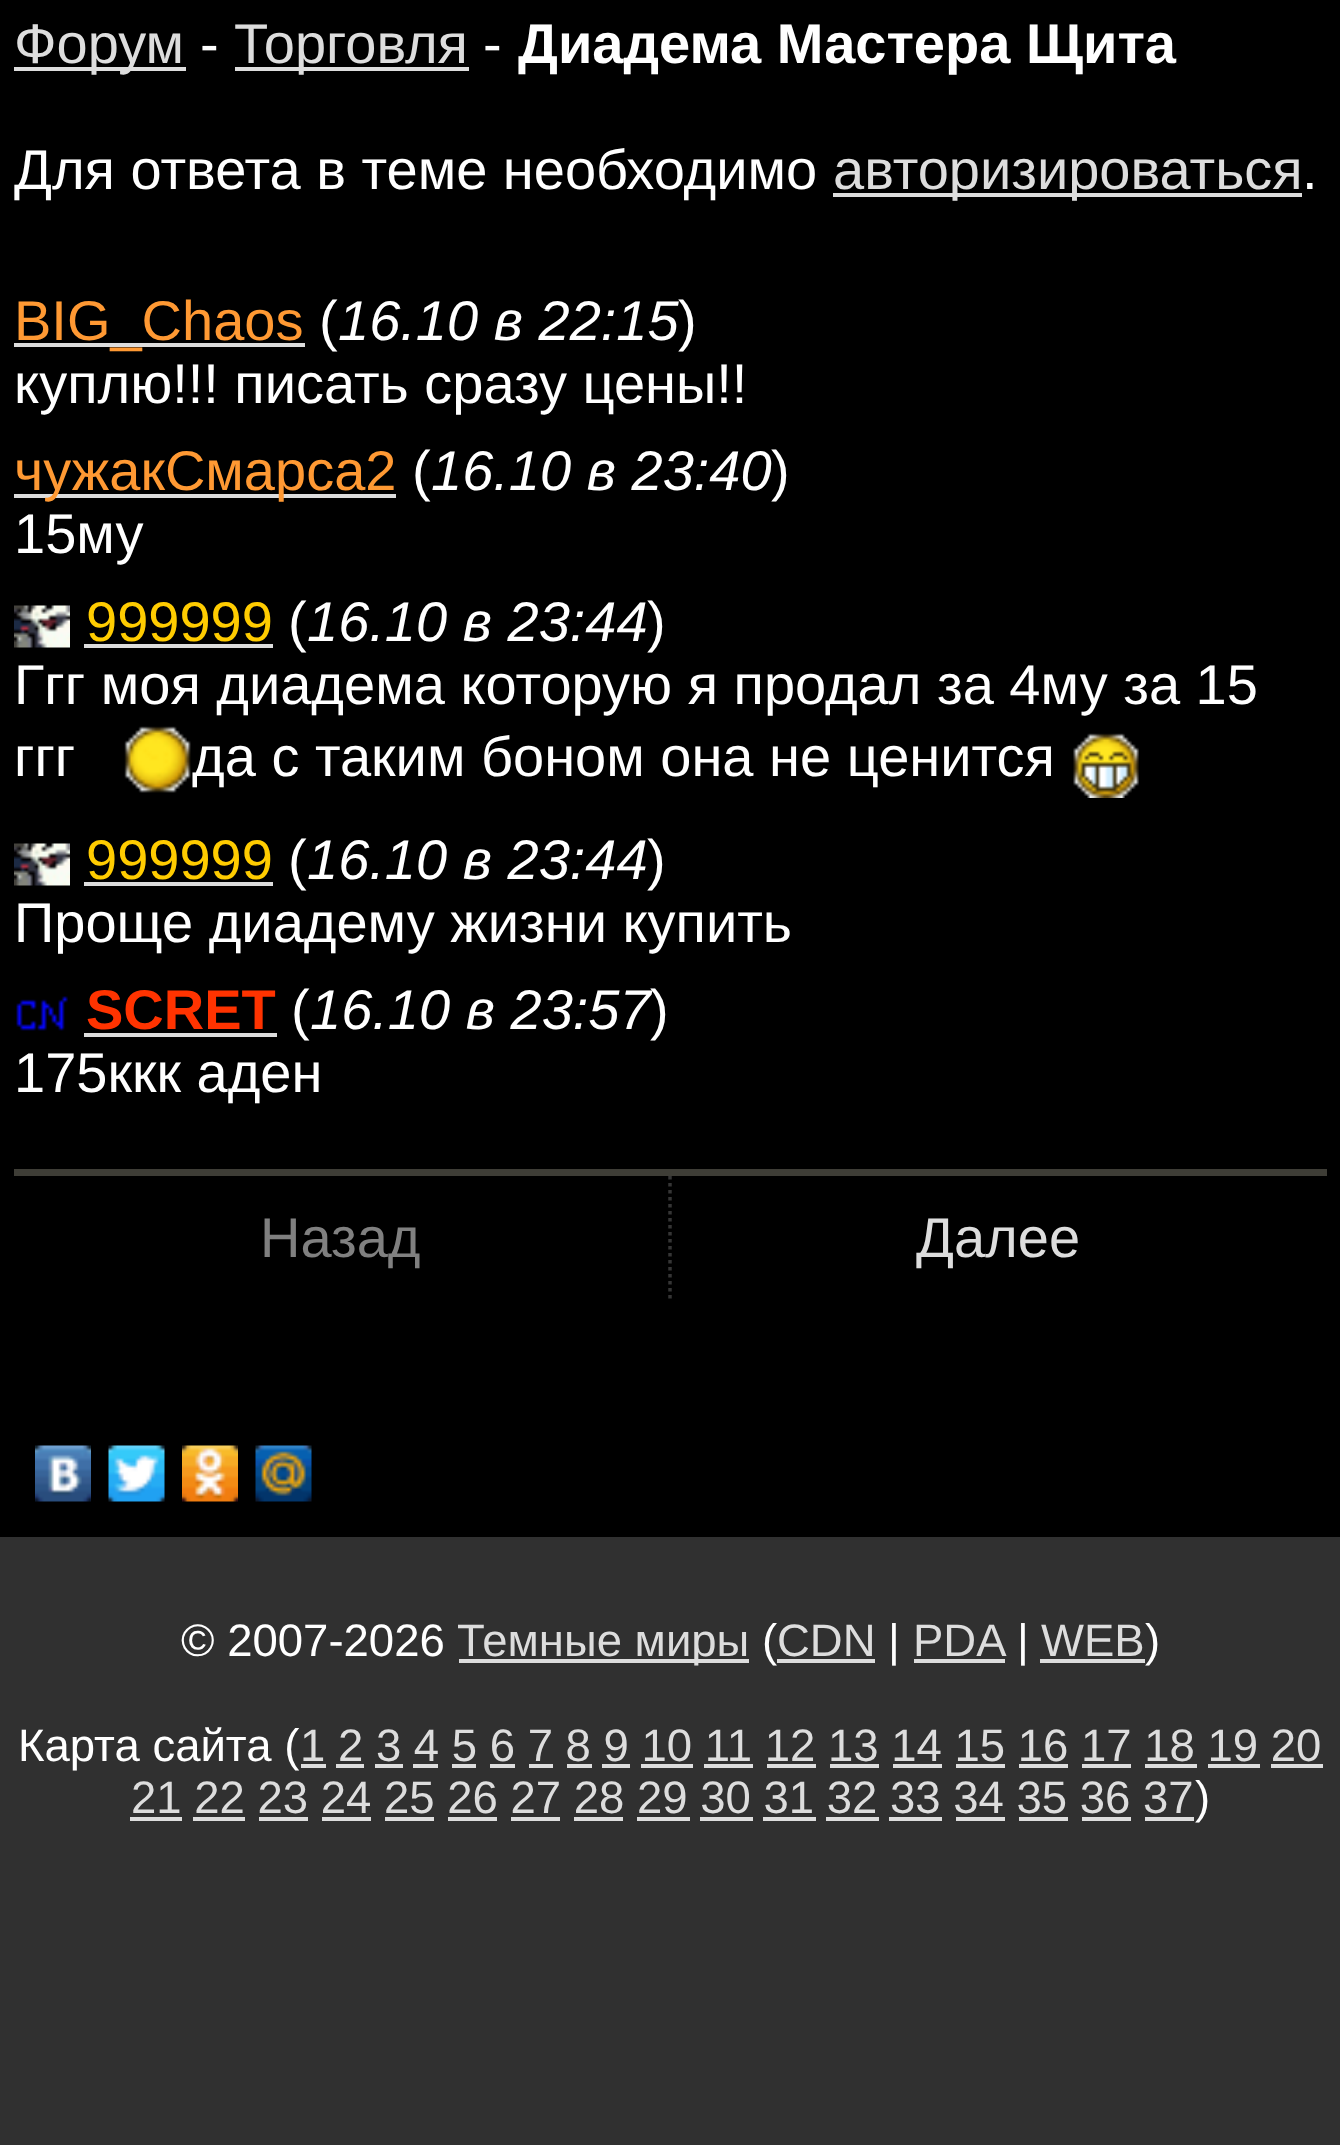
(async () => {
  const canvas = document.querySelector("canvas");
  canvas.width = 1340;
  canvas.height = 2145;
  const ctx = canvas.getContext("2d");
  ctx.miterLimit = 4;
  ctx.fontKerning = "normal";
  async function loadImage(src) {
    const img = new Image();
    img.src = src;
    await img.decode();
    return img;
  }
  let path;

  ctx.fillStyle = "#303030";
  ctx.fillRect(0, 0, 1340, 2145);
  for (const [x, y, w, h, color] of [
    [0, 0, 1340, 1537, "#000000"],
    [14, 67, 172, 4, "#dddddd"],
    [235, 67, 234, 4, "#dddddd"],
    [833, 193, 469, 4, "#dddddd"],
    [14, 343, 291, 4, "#dddddd"],
    [14, 494, 382, 4, "#dddddd"],
  ]) {
    ctx.fillStyle = color;
    ctx.fillRect(x, y, w, h);
  }
  ctx.drawImage(await loadImage("img/1.png"), 14, 605, 56, 43);
  ctx.fillRect(84, 644, 189, 4);
  ctx.drawImage(await loadImage("img/2.png"), 124, 726, 67, 67);
  ctx.drawImage(await loadImage("img/3.png"), 1073, 733, 66, 65);
  ctx.drawImage(await loadImage("img/1.png"), 14, 843, 56, 43);
  ctx.fillRect(84, 882, 189, 4);
  ctx.drawImage(await loadImage("img/4.png"), 16, 996, 52, 35);
  ctx.fillRect(84, 1033, 193, 4);
  ctx.fillStyle = "#3e3d36";
  ctx.fillRect(14, 1169, 1313, 7);
  path = new Path2D("M670 1176V1298.5");
  ctx.strokeStyle = "#353535";
  ctx.lineWidth = 3.5;
  ctx.setLineDash([3.5, 3.5]);
  ctx.stroke(path);
  ctx.drawImage(await loadImage("img/5.png"), 35, 1445, 56, 57);
  ctx.drawImage(await loadImage("img/6.png"), 108, 1445, 57, 57);
  ctx.drawImage(await loadImage("img/7.png"), 182, 1445, 56, 57);
  ctx.drawImage(await loadImage("img/8.png"), 255, 1445, 57, 57);
  for (const [x, y, w, h, color] of [
    [459, 1659, 290, 4, "#dddddd"],
    [777, 1659, 98, 4, "#dddddd"],
    [914, 1659, 91, 4, "#dddddd"],
    [1040, 1659, 105, 4, "#dddddd"],
    [301, 1764, 25, 4, "#dddddd"],
    [336, 1764, 28, 4, "#dddddd"],
    [375, 1764, 28, 4, "#dddddd"],
    [413, 1764, 25, 4, "#dddddd"],
    [452, 1764, 24, 4, "#dddddd"],
    [490, 1764, 25, 4, "#dddddd"],
    [529, 1764, 24, 4, "#dddddd"],
    [567, 1764, 25, 4, "#dddddd"],
    [602, 1764, 28, 4, "#dddddd"],
    [641, 1764, 52, 4, "#dddddd"],
    [704, 1764, 49, 4, "#dddddd"],
    [767, 1764, 49, 4, "#dddddd"],
    [830, 1764, 49, 4, "#dddddd"],
    [893, 1764, 49, 4, "#dddddd"],
    [956, 1764, 49, 4, "#dddddd"],
    [1019, 1764, 49, 4, "#dddddd"],
    [1082, 1764, 49, 4, "#dddddd"],
    [1145, 1764, 52, 4, "#dddddd"],
    [1208, 1764, 52, 4, "#dddddd"],
    [1271, 1764, 52, 4, "#dddddd"],
    [130, 1817, 52, 4, "#dddddd"],
    [193, 1817, 52, 4, "#dddddd"],
    [259, 1817, 49, 4, "#dddddd"],
    [322, 1817, 49, 4, "#dddddd"],
    [385, 1817, 49, 4, "#dddddd"],
    [448, 1817, 49, 4, "#dddddd"],
    [511, 1817, 49, 4, "#dddddd"],
    [574, 1817, 49, 4, "#dddddd"],
    [637, 1817, 53, 4, "#dddddd"],
    [700, 1817, 53, 4, "#dddddd"],
    [763, 1817, 53, 4, "#dddddd"],
    [826, 1817, 53, 4, "#dddddd"],
    [889, 1817, 53, 4, "#dddddd"],
    [956, 1817, 49, 4, "#dddddd"],
    [1019, 1817, 49, 4, "#dddddd"],
    [1082, 1817, 49, 4, "#dddddd"],
    [1145, 1817, 49, 4, "#dddddd"],
  ]) {
    ctx.fillStyle = color;
    ctx.fillRect(x, y, w, h);
  }
  ctx.font = "56px Liberation Sans";
  ctx.fillText("Форум", 14, 63);
  ctx.fillStyle = "#ffffff";
  ctx.fillText("-", 200, 63);
  ctx.fillStyle = "#dddddd";
  ctx.fillText("Торговля", 234, 63);
  ctx.fillStyle = "#ffffff";
  ctx.fillText("-", 483, 63);
  ctx.font = "bold 56px Liberation Sans";
  ctx.fillText("Диадема Мастера Щита", 518, 63);
  ctx.font = "56px Liberation Sans";
  ctx.fillText("Для ответа в теме необходимо", 14, 189);
  ctx.fillStyle = "#dddddd";
  ctx.fillText("авторизироваться", 833, 189);
  ctx.fillStyle = "#ffffff";
  ctx.fillText(".", 1302, 189);
  ctx.fillStyle = "#ff9933";
  ctx.fillText("BIG_Chaos", 14, 340);
  ctx.fillStyle = "#ffffff";
  ctx.fillText("(", 319, 340);
  ctx.font = "italic 56px Liberation Sans";
  ctx.fillText("16.10 в 22:15", 338, 340);
  ctx.font = "56px Liberation Sans";
  ctx.fillText(")", 678, 340);
  ctx.fillText("куплю!!! писать сразу цены!!", 14, 403);
  ctx.fillStyle = "#ff9933";
  ctx.fillText("чужакСмарса2", 14, 490);
  ctx.fillStyle = "#ffffff";
  ctx.fillText("(", 412, 490);
  ctx.font = "italic 56px Liberation Sans";
  ctx.fillText("16.10 в 23:40", 431, 490);
  ctx.font = "56px Liberation Sans";
  ctx.fillText(")", 771, 490);
  ctx.fillText("15му", 14, 553);
  ctx.fillStyle = "#ffcc00";
  ctx.fillText("999999", 86, 641);
  ctx.fillStyle = "#ffffff";
  ctx.fillText("(", 288, 641);
  ctx.font = "italic 56px Liberation Sans";
  ctx.fillText("16.10 в 23:44", 307, 641);
  ctx.font = "56px Liberation Sans";
  for (const [text, x, y] of [
    [")", 647, 641],
    ["Ггг моя диадема которую я продал за 4му за 15", 14, 704],
    ["ггг", 14, 776],
    ["да с таким боном она не ценится", 192, 776],
  ]) {
    ctx.fillText(text, x, y);
  }
  ctx.fillStyle = "#ffcc00";
  ctx.fillText("999999", 86, 879);
  ctx.fillStyle = "#ffffff";
  ctx.fillText("(", 288, 879);
  ctx.font = "italic 56px Liberation Sans";
  ctx.fillText("16.10 в 23:44", 307, 879);
  ctx.font = "56px Liberation Sans";
  ctx.fillText(")", 647, 879);
  ctx.fillText("Проще диадему жизни купить", 14, 942);
  ctx.font = "bold 56px Liberation Sans";
  ctx.fillStyle = "#ff3300";
  ctx.fillText("SCRET", 86, 1029);
  ctx.font = "56px Liberation Sans";
  ctx.fillStyle = "#ffffff";
  ctx.fillText("(", 291, 1029);
  ctx.font = "italic 56px Liberation Sans";
  ctx.fillText("16.10 в 23:57", 310, 1029);
  ctx.font = "56px Liberation Sans";
  ctx.fillText(")", 650, 1029);
  ctx.fillText("175ккк аден", 14, 1092);
  ctx.fillStyle = "#808080";
  ctx.fillText("Назад", 260, 1257);
  ctx.fillStyle = "#dddddd";
  ctx.fillText("Далее", 916, 1257);
  ctx.font = "45.5px Liberation Sans";
  ctx.fillStyle = "#ffffff";
  ctx.fillText("© 2007-2026", 181, 1656);
  ctx.fillStyle = "#dddddd";
  ctx.fillText("Темные миры", 457, 1656);
  ctx.fillStyle = "#ffffff";
  ctx.fillText("(", 762, 1656);
  ctx.fillStyle = "#dddddd";
  ctx.fillText("CDN", 777, 1656);
  ctx.fillStyle = "#ffffff";
  ctx.fillText("|", 888, 1656);
  ctx.fillStyle = "#dddddd";
  ctx.fillText("PDA", 913, 1656);
  ctx.fillStyle = "#ffffff";
  ctx.fillText("|", 1017, 1656);
  ctx.fillStyle = "#dddddd";
  ctx.fillText("WEB", 1041, 1656);
  ctx.fillStyle = "#ffffff";
  ctx.fillText(")", 1145, 1656);
  ctx.fillText("Карта сайта (", 18, 1761);
  ctx.fillStyle = "#dddddd";
  ctx.fillText("1 2 3 4 5 6 7 8 9 10 11 12 13 14 15 16 17 18 19 20", 300, 1761);
  ctx.fillText("21 22 23 24 25 26 27 28 29 30 31 32 33 34 35 36 37", 131, 1813);
  ctx.fillStyle = "#ffffff";
  ctx.fillText(")", 1195, 1813);
})();
